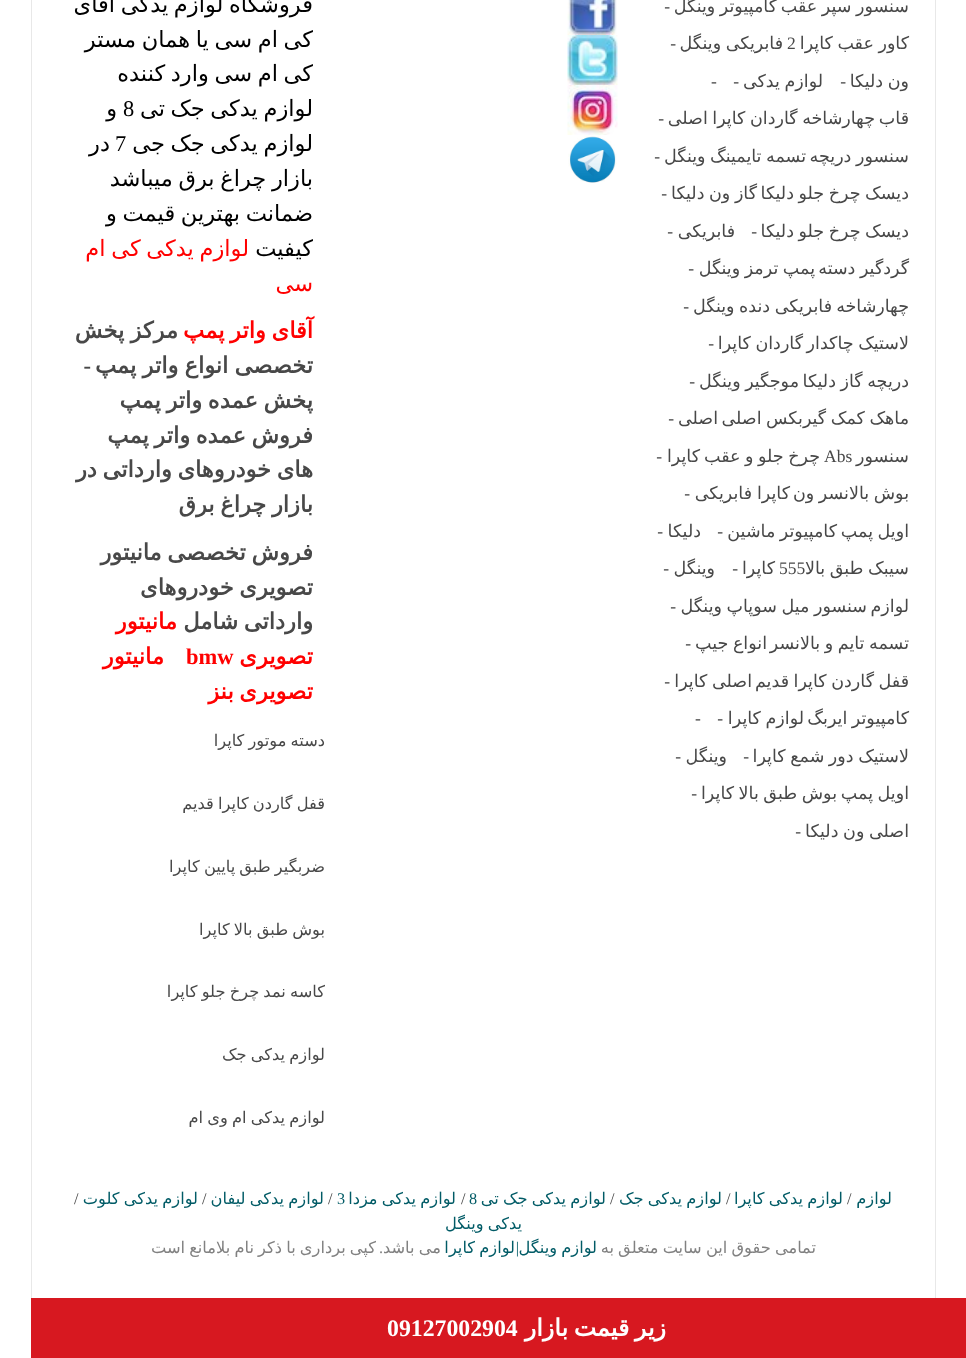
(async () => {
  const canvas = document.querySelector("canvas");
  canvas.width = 966;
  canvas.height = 1358;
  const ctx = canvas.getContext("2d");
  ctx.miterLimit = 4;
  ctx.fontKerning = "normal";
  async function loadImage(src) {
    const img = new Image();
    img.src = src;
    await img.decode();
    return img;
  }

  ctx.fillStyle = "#ffffff";
  ctx.fillRect(0, 0, 966, 1358);
  ctx.strokeStyle = "#e8e8e8";
  ctx.strokeRect(31.5, -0.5, 904, 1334);
  ctx.drawImage(await loadImage("img/1.png"), 567, 0, 50, 35);
  ctx.drawImage(await loadImage("img/2.png"), 567, 35, 51, 50);
  ctx.drawImage(await loadImage("img/3.png"), 567, 85, 51, 50);
  ctx.drawImage(await loadImage("img/4.png"), 568, 135, 49, 48);
  ctx.fillStyle = "#d71820";
  ctx.fillRect(31, 1298, 935, 60);
  ctx.wordSpacing = "-1px";
  ctx.direction = "rtl";
  ctx.font = "17.5px DejaVu Sans";
  ctx.fillStyle = "#484848";
  ctx.fillText("سنسور سپر عقب", 909, 12);
  ctx.fillText("کامپیوتر وینگل", 777, 12);
  ctx.wordSpacing = "0px";
  ctx.font = "17.5px Liberation Serif";
  ctx.fillText("-", 670, 12);
  ctx.wordSpacing = "-1px";
  ctx.font = "17.5px DejaVu Sans";
  ctx.fillText("کاور عقب کاپرا", 909, 49);
  ctx.wordSpacing = "0px";
  ctx.direction = "ltr";
  ctx.font = "17.5px Liberation Serif";
  ctx.fillText("2", 787, 49);
  ctx.wordSpacing = "-1px";
  ctx.direction = "rtl";
  ctx.font = "17.5px DejaVu Sans";
  ctx.fillText("فابریکی وینگل", 783, 49);
  ctx.wordSpacing = "0px";
  ctx.font = "17.5px Liberation Serif";
  ctx.fillText("-", 676, 49);
  ctx.wordSpacing = "-1px";
  ctx.font = "17.5px DejaVu Sans";
  ctx.fillText("ون دلیکا", 909, 87);
  ctx.wordSpacing = "0px";
  ctx.font = "17.5px Liberation Serif";
  ctx.fillText("-", 846, 87);
  ctx.wordSpacing = "-1px";
  ctx.font = "17.5px DejaVu Sans";
  ctx.fillText("لوازم یدکی", 823, 87);
  ctx.wordSpacing = "0px";
  ctx.font = "17.5px Liberation Serif";
  ctx.fillText("-", 739, 87);
  ctx.direction = "ltr";
  ctx.fillText("-", 711, 87);
  ctx.direction = "rtl";
  ctx.font = "17.5px DejaVu Sans";
  ctx.fillText("قاب", 909, 124);
  ctx.wordSpacing = "-1px";
  ctx.fillText("چهارشاخه گاردان کاپرا اصلی", 875, 124);
  ctx.wordSpacing = "0px";
  ctx.font = "17.5px Liberation Serif";
  ctx.fillText("-", 664, 124);
  ctx.wordSpacing = "-1px";
  ctx.font = "17.5px DejaVu Sans";
  ctx.fillText("سنسور دریچه", 909, 162);
  ctx.fillText("تسمه تایمینگ وینگل", 806, 162);
  ctx.wordSpacing = "0px";
  ctx.font = "17.5px Liberation Serif";
  ctx.fillText("-", 660, 162);
  ctx.wordSpacing = "-1px";
  ctx.font = "17.5px DejaVu Sans";
  ctx.fillText("دیسک چرخ جلو دلیکا", 909, 199);
  ctx.fillText("گاز ون دلیکا", 757, 199);
  ctx.wordSpacing = "0px";
  ctx.font = "17.5px Liberation Serif";
  ctx.fillText("-", 667, 199);
  ctx.wordSpacing = "-1px";
  ctx.font = "17.5px DejaVu Sans";
  ctx.fillText("دیسک چرخ جلو دلیکا", 909, 237);
  ctx.wordSpacing = "0px";
  ctx.font = "17.5px Liberation Serif";
  ctx.fillText("-", 757, 237);
  ctx.font = "17.5px DejaVu Sans";
  ctx.fillText("فابریکی", 735, 237);
  ctx.font = "17.5px Liberation Serif";
  ctx.fillText("-", 673, 237);
  ctx.wordSpacing = "-1px";
  ctx.font = "17.5px DejaVu Sans";
  ctx.fillText("گردگیر دسته", 909, 274);
  ctx.fillText("پمپ ترمز وینگل", 815, 274);
  ctx.wordSpacing = "0px";
  ctx.font = "17.5px Liberation Serif";
  ctx.fillText("-", 694, 274);
  ctx.font = "17.5px DejaVu Sans";
  ctx.fillText("چهارشاخه", 909, 312);
  ctx.wordSpacing = "-1px";
  ctx.fillText("فابریکی دنده وینگل", 832, 312);
  ctx.wordSpacing = "0px";
  ctx.font = "17.5px Liberation Serif";
  ctx.fillText("-", 689, 312);
  ctx.wordSpacing = "-1px";
  ctx.font = "17.5px DejaVu Sans";
  ctx.fillText("لاستیک چاکدار", 909, 349);
  ctx.fillText("گاردان کاپرا", 803, 349);
  ctx.wordSpacing = "0px";
  ctx.font = "17.5px Liberation Serif";
  ctx.fillText("-", 714, 349);
  ctx.wordSpacing = "-1px";
  ctx.font = "17.5px DejaVu Sans";
  ctx.fillText("دریچه گاز دلیکا", 909, 387);
  ctx.fillText("موجگیر وینگل", 799, 387);
  ctx.wordSpacing = "0px";
  ctx.font = "17.5px Liberation Serif";
  ctx.fillText("-", 695, 387);
  ctx.wordSpacing = "-1px";
  ctx.font = "17.5px DejaVu Sans";
  ctx.fillText("ماهک کمک گیربکس اصلی", 909, 424);
  ctx.wordSpacing = "0px";
  ctx.fillText("اصلی", 718, 424);
  ctx.font = "17.5px Liberation Serif";
  ctx.fillText("-", 674, 424);
  ctx.font = "17.5px DejaVu Sans";
  ctx.fillText("سنسور", 909, 462);
  ctx.direction = "ltr";
  ctx.font = "17.5px Liberation Serif";
  ctx.fillText("Abs", 824, 462);
  ctx.wordSpacing = "-1px";
  ctx.direction = "rtl";
  ctx.font = "17.5px DejaVu Sans";
  ctx.fillText("چرخ جلو و عقب", 820, 462);
  ctx.wordSpacing = "0px";
  ctx.fillText("کاپرا", 700, 462);
  ctx.font = "17.5px Liberation Serif";
  ctx.fillText("-", 662, 462);
  ctx.wordSpacing = "-1px";
  ctx.font = "17.5px DejaVu Sans";
  ctx.fillText("بوش بالانسر ون", 909, 499);
  ctx.wordSpacing = "0px";
  ctx.fillText("کاپرا", 790, 499);
  ctx.fillText("فابریکی", 752, 499);
  ctx.font = "17.5px Liberation Serif";
  ctx.fillText("-", 690, 499);
  ctx.wordSpacing = "-1px";
  ctx.font = "17.5px DejaVu Sans";
  ctx.fillText("اویل پمپ", 909, 537);
  ctx.fillText("کامپیوتر ماشین", 837, 537);
  ctx.wordSpacing = "0px";
  ctx.font = "17.5px Liberation Serif";
  ctx.fillText("-", 723, 537);
  ctx.font = "17.5px DejaVu Sans";
  ctx.fillText("دلیکا", 701, 537);
  ctx.font = "17.5px Liberation Serif";
  ctx.fillText("-", 663, 537);
  ctx.wordSpacing = "-1px";
  ctx.font = "17.5px DejaVu Sans";
  ctx.fillText("سیبک طبق بالا", 909, 574);
  ctx.wordSpacing = "0px";
  ctx.direction = "ltr";
  ctx.font = "17.5px Liberation Serif";
  ctx.fillText("555", 779, 574);
  ctx.direction = "rtl";
  ctx.font = "17.5px DejaVu Sans";
  ctx.fillText("کاپرا", 775, 574);
  ctx.font = "17.5px Liberation Serif";
  ctx.fillText("-", 738, 574);
  ctx.font = "17.5px DejaVu Sans";
  ctx.fillText("وینگل", 715, 574);
  ctx.font = "17.5px Liberation Serif";
  ctx.fillText("-", 669, 574);
  ctx.font = "17.5px DejaVu Sans";
  ctx.fillText("لوازم", 909, 612);
  ctx.wordSpacing = "-1px";
  ctx.fillText("سنسور میل سوپاپ وینگل", 867, 612);
  ctx.wordSpacing = "0px";
  ctx.font = "17.5px Liberation Serif";
  ctx.fillText("-", 676, 612);
  ctx.wordSpacing = "-1px";
  ctx.font = "17.5px DejaVu Sans";
  ctx.fillText("تسمه تایم و بالانسر", 909, 649);
  ctx.fillText("انواع جیپ", 767, 649);
  ctx.wordSpacing = "0px";
  ctx.font = "17.5px Liberation Serif";
  ctx.fillText("-", 691, 649);
  ctx.wordSpacing = "-1px";
  ctx.font = "17.5px DejaVu Sans";
  ctx.fillText("قفل گاردن کاپرا قدیم", 909, 687);
  ctx.fillText("اصلی کاپرا", 752, 687);
  ctx.wordSpacing = "0px";
  ctx.font = "17.5px Liberation Serif";
  ctx.fillText("-", 670, 687);
  ctx.wordSpacing = "-1px";
  ctx.font = "17.5px DejaVu Sans";
  ctx.fillText("کامپیوتر ایربگ", 909, 724);
  ctx.fillText("لوازم کاپرا", 804, 724);
  ctx.wordSpacing = "0px";
  ctx.font = "17.5px Liberation Serif";
  ctx.fillText("-", 723, 724);
  ctx.direction = "ltr";
  ctx.fillText("-", 695, 724);
  ctx.wordSpacing = "-1px";
  ctx.direction = "rtl";
  ctx.font = "17.5px DejaVu Sans";
  ctx.fillText("لاستیک دور شمع کاپرا", 909, 762);
  ctx.wordSpacing = "0px";
  ctx.font = "17.5px Liberation Serif";
  ctx.fillText("-", 749, 762);
  ctx.font = "17.5px DejaVu Sans";
  ctx.fillText("وینگل", 727, 762);
  ctx.font = "17.5px Liberation Serif";
  ctx.fillText("-", 681, 762);
  ctx.wordSpacing = "-1px";
  ctx.font = "17.5px DejaVu Sans";
  ctx.fillText("اویل پمپ", 909, 799);
  ctx.fillText("بوش طبق بالا کاپرا", 837, 799);
  ctx.wordSpacing = "0px";
  ctx.font = "17.5px Liberation Serif";
  ctx.fillText("-", 697, 799);
  ctx.wordSpacing = "-1px";
  ctx.font = "17.5px DejaVu Sans";
  ctx.fillText("اصلی ون دلیکا", 909, 837);
  ctx.wordSpacing = "0px";
  ctx.font = "17.5px Liberation Serif";
  ctx.fillText("-", 801, 837);
  ctx.wordSpacing = "-1.5px";
  ctx.font = "22.5px DejaVu Sans";
  ctx.fillStyle = "#000000";
  for (const [text, x, y] of [
    ["فروشگاه لوازم یدکی آقای", 313, 12],
    ["کی ام سی یا همان مستر", 313, 47],
    ["کی ام سی وارد کننده", 313, 81],
    ["لوازم یدکی جک تی", 313, 116],
  ]) {
    ctx.fillText(text, x, y);
  }
  ctx.wordSpacing = "0px";
  ctx.direction = "ltr";
  ctx.font = "22.5px Liberation Serif";
  ctx.fillText("8", 123, 116);
  ctx.direction = "rtl";
  ctx.font = "22.5px DejaVu Sans";
  ctx.fillText("و", 117, 116);
  ctx.wordSpacing = "-1.5px";
  ctx.fillText("لوازم یدکی جک جی", 313, 151);
  ctx.wordSpacing = "0px";
  ctx.direction = "ltr";
  ctx.font = "22.5px Liberation Serif";
  ctx.fillText("7", 115, 151);
  ctx.direction = "rtl";
  ctx.font = "22.5px DejaVu Sans";
  ctx.fillText("در", 110, 151);
  ctx.wordSpacing = "-1.5px";
  ctx.fillText("بازار چراغ برق میباشد", 313, 186);
  ctx.fillText("ضمانت بهترین قیمت و", 313, 221);
  ctx.wordSpacing = "0px";
  ctx.fillText("کیفیت", 313, 256);
  ctx.wordSpacing = "-1.5px";
  ctx.fillStyle = "#ff0000";
  ctx.fillText("لوازم یدکی کی ام", 249, 256);
  ctx.wordSpacing = "0px";
  ctx.fillText("سی", 313, 291);
  ctx.wordSpacing = "-1.5px";
  ctx.font = "bold 22.5px DejaVu Sans";
  ctx.fillText("آقای واتر پمپ", 313, 338);
  ctx.wordSpacing = "-1px";
  ctx.fillStyle = "#484848";
  ctx.fillText("مرکز پخش", 178, 338);
  ctx.fillText("تخصصی انواع واتر پمپ", 313, 373);
  ctx.wordSpacing = "0px";
  ctx.font = "bold 22.5px Liberation Serif";
  ctx.fillText("-", 91, 373);
  ctx.wordSpacing = "-1.5px";
  ctx.font = "bold 22.5px DejaVu Sans";
  for (const [text, x, y] of [
    ["پخش عمده واتر پمپ", 313, 408],
    ["فروش عمده واتر پمپ", 313, 443],
    ["های خودروهای وارداتی در", 313, 477],
    ["بازار چراغ برق", 313, 512],
    ["فروش تخصصی مانیتور", 313, 560],
    ["تصویری خودروهای", 313, 595],
    ["وارداتی شامل", 313, 629],
  ]) {
    ctx.fillText(text, x, y);
  }
  ctx.wordSpacing = "0px";
  ctx.fillStyle = "#ff0000";
  ctx.fillText("مانیتور", 177, 629);
  ctx.fillText("تصویری", 313, 664);
  ctx.direction = "ltr";
  ctx.font = "bold 22.5px Liberation Serif";
  ctx.fillText("bmw", 186, 664);
  ctx.direction = "rtl";
  ctx.font = "bold 22.5px DejaVu Sans";
  ctx.fillText("مانیتور", 164, 664);
  ctx.wordSpacing = "-1.5px";
  ctx.fillText("تصویری بنز", 313, 699);
  ctx.wordSpacing = "-1px";
  ctx.font = "16.25px DejaVu Sans";
  ctx.fillStyle = "#484848";
  for (const [text, x, y] of [
    ["دسته موتور کاپرا", 325, 746],
    ["قفل گاردن کاپرا قدیم", 325, 809],
    ["ضربگیر طبق پایین کاپرا", 325, 872],
    ["بوش طبق بالا کاپرا", 325, 935],
    ["کاسه نمد چرخ جلو کاپرا", 325, 997],
    ["لوازم یدکی جک", 325, 1060],
    ["لوازم یدکی ام وی ام", 325, 1123],
  ]) {
    ctx.fillText(text, x, y);
  }
  ctx.wordSpacing = "0px";
  ctx.fillStyle = "#015b66";
  ctx.fillText("لوازم", 892, 1204);
  ctx.direction = "ltr";
  ctx.font = "16.25px Liberation Serif";
  ctx.fillStyle = "#484848";
  ctx.fillText("/", 847, 1204);
  ctx.wordSpacing = "-1px";
  ctx.direction = "rtl";
  ctx.font = "16.25px DejaVu Sans";
  ctx.fillStyle = "#015b66";
  ctx.fillText("لوازم یدکی کاپرا", 843, 1204);
  ctx.wordSpacing = "0px";
  ctx.direction = "ltr";
  ctx.font = "16.25px Liberation Serif";
  ctx.fillStyle = "#484848";
  ctx.fillText("/", 726, 1204);
  ctx.wordSpacing = "-1px";
  ctx.direction = "rtl";
  ctx.font = "16.25px DejaVu Sans";
  ctx.fillStyle = "#015b66";
  ctx.fillText("لوازم یدکی جک", 722, 1204);
  ctx.wordSpacing = "0px";
  ctx.direction = "ltr";
  ctx.font = "16.25px Liberation Serif";
  ctx.fillStyle = "#484848";
  ctx.fillText("/", 610, 1204);
  ctx.wordSpacing = "-1px";
  ctx.direction = "rtl";
  ctx.font = "16.25px DejaVu Sans";
  ctx.fillStyle = "#015b66";
  ctx.fillText("لوازم یدکی جک تی", 606, 1204);
  ctx.wordSpacing = "0px";
  ctx.direction = "ltr";
  ctx.font = "16.25px Liberation Serif";
  ctx.fillText("8", 469, 1204);
  ctx.fillStyle = "#484848";
  ctx.fillText("/", 461, 1204);
  ctx.wordSpacing = "-1px";
  ctx.direction = "rtl";
  ctx.font = "16.25px DejaVu Sans";
  ctx.fillStyle = "#015b66";
  ctx.fillText("لوازم یدکی مزدا", 456, 1204);
  ctx.wordSpacing = "0px";
  ctx.direction = "ltr";
  ctx.font = "16.25px Liberation Serif";
  ctx.fillText("3", 337, 1204);
  ctx.fillStyle = "#484848";
  ctx.fillText("/", 328, 1204);
  ctx.wordSpacing = "-1px";
  ctx.direction = "rtl";
  ctx.font = "16.25px DejaVu Sans";
  ctx.fillStyle = "#015b66";
  ctx.fillText("لوازم یدکی لیفان", 324, 1204);
  ctx.wordSpacing = "0px";
  ctx.direction = "ltr";
  ctx.font = "16.25px Liberation Serif";
  ctx.fillStyle = "#484848";
  ctx.fillText("/", 202, 1204);
  ctx.wordSpacing = "-1px";
  ctx.direction = "rtl";
  ctx.font = "16.25px DejaVu Sans";
  ctx.fillStyle = "#015b66";
  ctx.fillText("لوازم یدکی کلوت", 198, 1204);
  ctx.wordSpacing = "0px";
  ctx.direction = "ltr";
  ctx.font = "16.25px Liberation Serif";
  ctx.fillStyle = "#484848";
  ctx.fillText("/", 74, 1204);
  ctx.wordSpacing = "-1px";
  ctx.direction = "rtl";
  ctx.font = "16.25px DejaVu Sans";
  ctx.fillStyle = "#015b66";
  ctx.fillText("یدکی وینگل", 522, 1229);
  ctx.fillStyle = "#818181";
  ctx.fillText("تمامی حقوق این سایت متعلق به", 816, 1253);
  ctx.fillStyle = "#015b66";
  ctx.fillText("لوازم وینگل", 597, 1253);
  ctx.wordSpacing = "0px";
  ctx.font = "16.25px Liberation Serif";
  ctx.fillText("|", 519, 1253);
  ctx.wordSpacing = "-1px";
  ctx.font = "16.25px DejaVu Sans";
  ctx.fillText("لوازم کاپرا", 515, 1253);
  ctx.fillStyle = "#818181";
  ctx.fillText("می باشد", 441, 1253);
  ctx.fillText("کپی برداری با ذکر نام بلامانع است", 376, 1253);
  ctx.wordSpacing = "0px";
  ctx.font = "16.25px Liberation Serif";
  ctx.fillText(".", 383, 1253);
  ctx.wordSpacing = "-2px";
  ctx.font = "bold 23.75px DejaVu Sans";
  ctx.fillStyle = "#ffffff";
  ctx.fillText("زیر قیمت بازار", 666, 1336);
  ctx.wordSpacing = "0px";
  ctx.direction = "ltr";
  ctx.font = "bold 23.75px Liberation Serif";
  ctx.fillText("09127002904", 387, 1336);
})();
